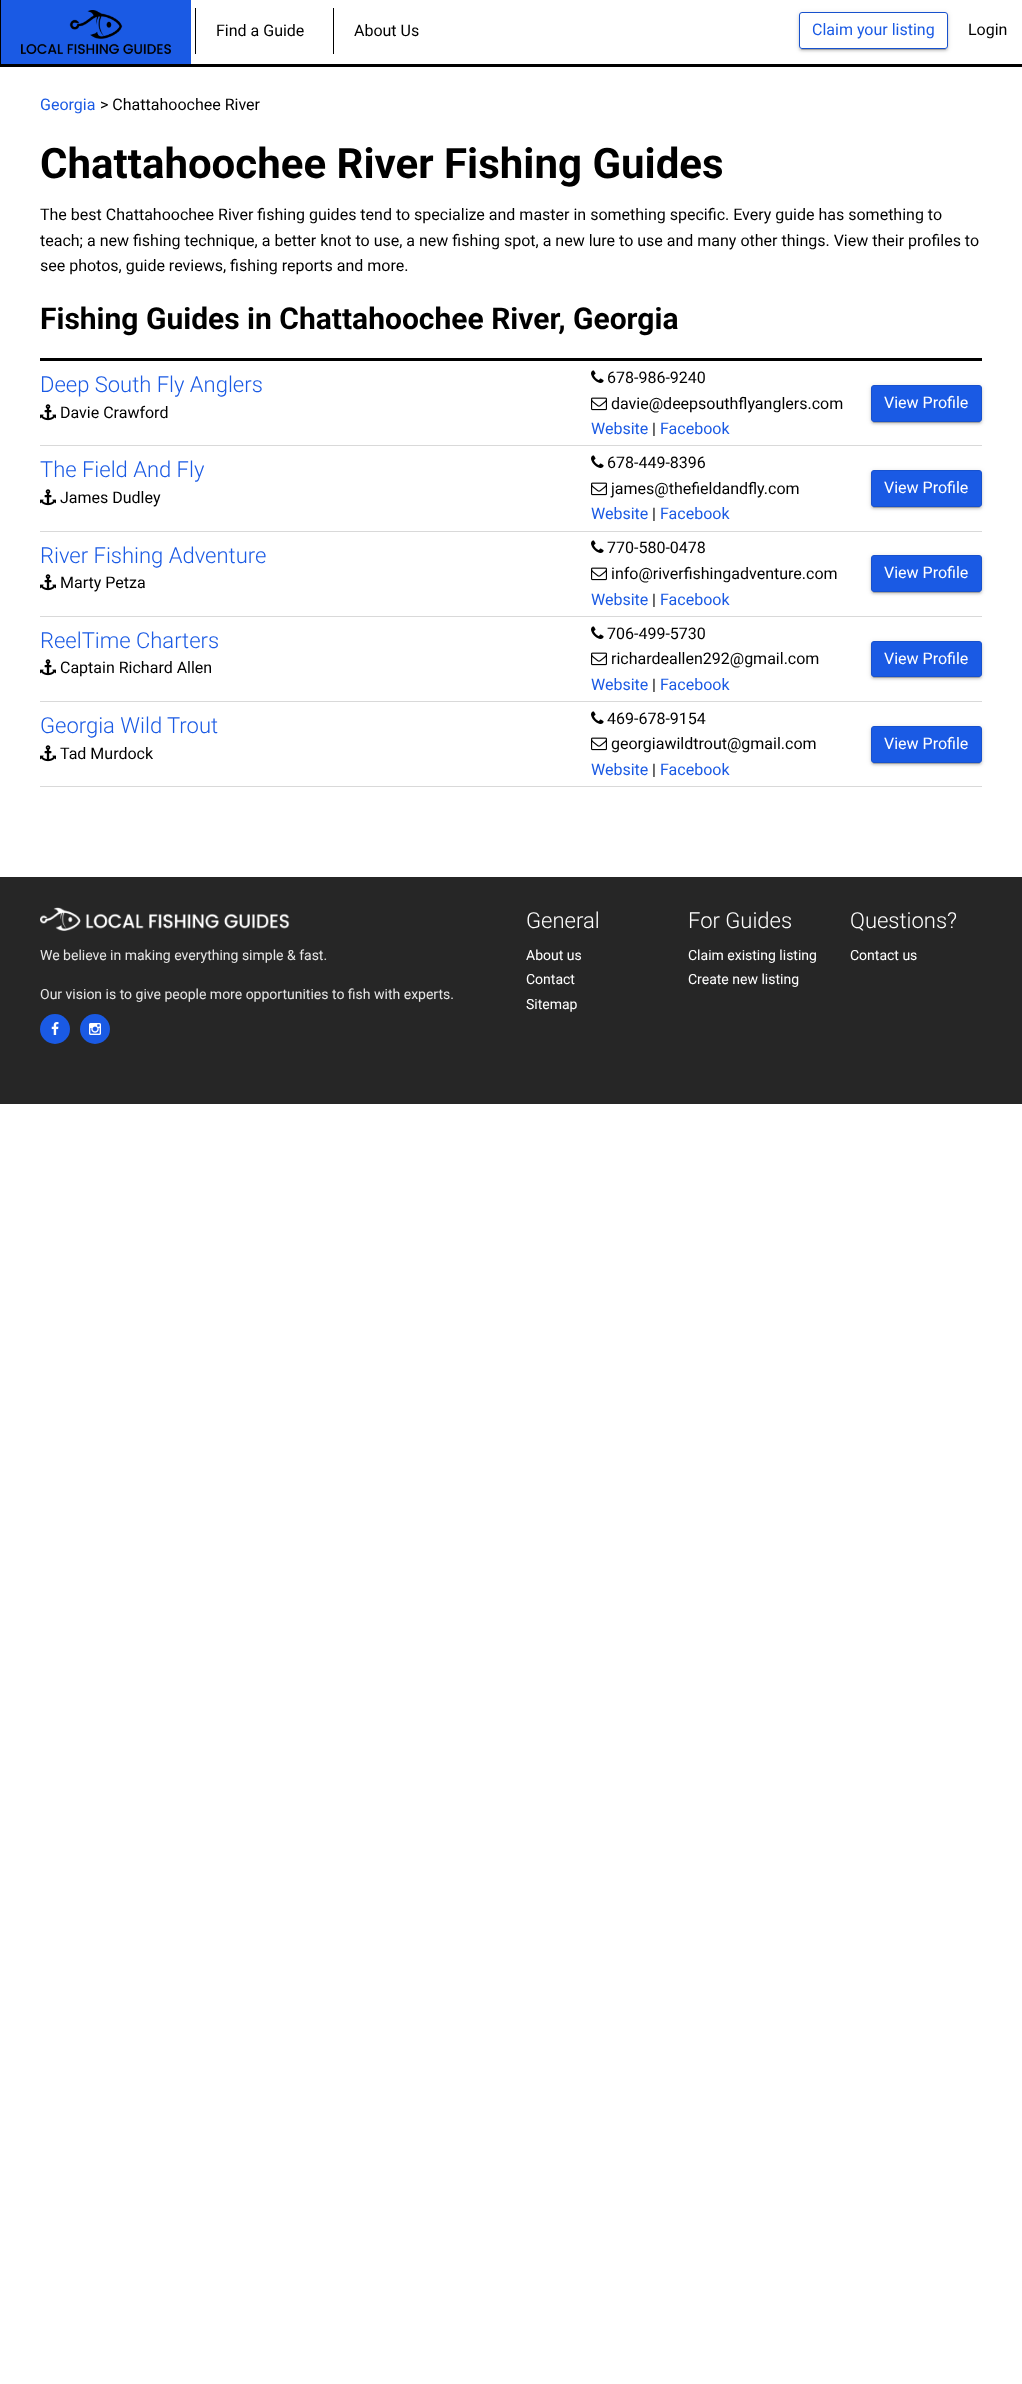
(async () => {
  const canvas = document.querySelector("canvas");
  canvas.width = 1022;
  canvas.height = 2384;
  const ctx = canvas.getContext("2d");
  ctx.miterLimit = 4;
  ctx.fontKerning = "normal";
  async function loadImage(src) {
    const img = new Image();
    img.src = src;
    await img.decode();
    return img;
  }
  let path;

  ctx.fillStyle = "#ffffff";
  ctx.fillRect(0, 0, 1022, 2384);
  for (const [x, y, w, h, color] of [
    [0, 64, 1022, 3, "#000000"],
    [0, 0, 1, 64, "#000000"],
    [1, 0, 190, 64, "#1a5ae4"],
  ]) {
    ctx.fillStyle = color;
    ctx.fillRect(x, y, w, h);
  }
  ctx.drawImage(await loadImage("img/1.png"), 21, 10, 150, 44);
  ctx.fillStyle = "#000000";
  ctx.fillRect(195, 8, 1, 46);
  ctx.fillRect(333, 8, 1, 46);
  ctx.save();
  path = new Path2D("M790 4H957V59H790ZM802 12H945C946.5 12 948 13.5 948 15V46C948 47.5 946.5 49 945 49H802C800.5 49 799 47.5 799 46V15C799 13.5 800.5 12 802 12Z");
  ctx.clip(path, "evenodd");
  ctx.fillStyle = "rgba(0, 0, 0, 0.12)";
  ctx.filter = "blur(2.5px)";
  ctx.beginPath();
  ctx.roundRect(799, 13, 149, 37, 3);
  ctx.fill();
  ctx.filter = "none";
  ctx.restore();
  ctx.save();
  ctx.beginPath();
  ctx.rect(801, 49, 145, 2);
  ctx.clip();
  ctx.fillStyle = "rgba(0, 0, 0, 0.2)";
  ctx.filter = "blur(0.5px)";
  ctx.beginPath();
  ctx.roundRect(801, 17, 145, 33, 1);
  ctx.fill();
  ctx.filter = "none";
  ctx.restore();
  ctx.save();
  path = new Path2D("M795 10H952V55H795ZM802 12H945C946.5 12 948 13.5 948 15V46C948 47.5 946.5 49 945 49H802C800.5 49 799 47.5 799 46V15C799 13.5 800.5 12 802 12Z");
  ctx.clip(path, "evenodd");
  ctx.fillStyle = "rgba(0, 0, 0, 0.14)";
  ctx.filter = "blur(1px)";
  ctx.beginPath();
  ctx.roundRect(799, 14, 149, 37, 3);
  ctx.fill();
  ctx.filter = "none";
  ctx.restore();
  ctx.beginPath();
  ctx.roundRect(799.5, 12.5, 148, 36, 2.5);
  ctx.strokeStyle = "#1751cd";
  ctx.stroke();
  ctx.fillRect(40, 358, 942, 3);
  ctx.drawImage(await loadImage("img/2.png"), 40, 404, 16, 17);
  ctx.drawImage(await loadImage("img/3.png"), 591, 370, 13, 13);
  ctx.drawImage(await loadImage("img/4.png"), 591, 397, 16, 14);
  ctx.fillStyle = "rgba(0, 0, 0, 0.12)";
  ctx.filter = "blur(2.5px)";
  ctx.beginPath();
  ctx.roundRect(871, 386, 111, 37, 3);
  ctx.fill();
  ctx.filter = "none";
  ctx.fillStyle = "rgba(0, 0, 0, 0.2)";
  ctx.filter = "blur(0.5px)";
  ctx.beginPath();
  ctx.roundRect(873, 390, 107, 33, 1);
  ctx.fill();
  ctx.filter = "none";
  ctx.fillStyle = "rgba(0, 0, 0, 0.14)";
  ctx.filter = "blur(1px)";
  ctx.beginPath();
  ctx.roundRect(871, 387, 111, 37, 3);
  ctx.fill();
  ctx.filter = "none";
  ctx.fillStyle = "#1a5ae4";
  ctx.beginPath();
  ctx.roundRect(871.5, 385.5, 110, 36, 2.5);
  ctx.fill();
  ctx.stroke();
  ctx.drawImage(await loadImage("img/2.png"), 40, 489, 16, 17);
  ctx.drawImage(await loadImage("img/3.png"), 591, 455, 13, 13);
  ctx.drawImage(await loadImage("img/4.png"), 591, 482, 16, 14);
  ctx.fillStyle = "#d9d9d9";
  ctx.fillRect(40, 445, 942, 1);
  ctx.fillStyle = "rgba(0, 0, 0, 0.12)";
  ctx.filter = "blur(2.5px)";
  ctx.beginPath();
  ctx.roundRect(871, 471, 111, 37, 3);
  ctx.fill();
  ctx.filter = "none";
  ctx.fillStyle = "rgba(0, 0, 0, 0.2)";
  ctx.filter = "blur(0.5px)";
  ctx.beginPath();
  ctx.roundRect(873, 475, 107, 33, 1);
  ctx.fill();
  ctx.filter = "none";
  ctx.fillStyle = "rgba(0, 0, 0, 0.14)";
  ctx.filter = "blur(1px)";
  ctx.beginPath();
  ctx.roundRect(871, 472, 111, 37, 3);
  ctx.fill();
  ctx.filter = "none";
  ctx.fillStyle = "#1a5ae4";
  ctx.beginPath();
  ctx.roundRect(871.5, 470.5, 110, 36, 2.5);
  ctx.fill();
  ctx.stroke();
  ctx.drawImage(await loadImage("img/2.png"), 40, 574, 16, 17);
  ctx.drawImage(await loadImage("img/3.png"), 591, 540, 13, 13);
  ctx.drawImage(await loadImage("img/4.png"), 591, 567, 16, 14);
  ctx.fillStyle = "#d9d9d9";
  ctx.fillRect(40, 531, 942, 1);
  ctx.fillStyle = "rgba(0, 0, 0, 0.12)";
  ctx.filter = "blur(2.5px)";
  ctx.beginPath();
  ctx.roundRect(871, 556, 111, 37, 3);
  ctx.fill();
  ctx.filter = "none";
  ctx.fillStyle = "rgba(0, 0, 0, 0.2)";
  ctx.filter = "blur(0.5px)";
  ctx.beginPath();
  ctx.roundRect(873, 560, 107, 33, 1);
  ctx.fill();
  ctx.filter = "none";
  ctx.fillStyle = "rgba(0, 0, 0, 0.14)";
  ctx.filter = "blur(1px)";
  ctx.beginPath();
  ctx.roundRect(871, 557, 111, 37, 3);
  ctx.fill();
  ctx.filter = "none";
  ctx.fillStyle = "#1a5ae4";
  ctx.beginPath();
  ctx.roundRect(871.5, 555.5, 110, 36, 2.5);
  ctx.fill();
  ctx.stroke();
  ctx.drawImage(await loadImage("img/2.png"), 40, 659, 16, 17);
  ctx.drawImage(await loadImage("img/3.png"), 591, 626, 13, 13);
  ctx.drawImage(await loadImage("img/4.png"), 591, 652, 16, 14);
  ctx.fillStyle = "#d9d9d9";
  ctx.fillRect(40, 616, 942, 1);
  ctx.fillStyle = "rgba(0, 0, 0, 0.12)";
  ctx.filter = "blur(2.5px)";
  ctx.beginPath();
  ctx.roundRect(871, 642, 111, 36, 3);
  ctx.fill();
  ctx.filter = "none";
  ctx.fillStyle = "rgba(0, 0, 0, 0.2)";
  ctx.filter = "blur(0.5px)";
  ctx.beginPath();
  ctx.roundRect(873, 646, 107, 32, 1);
  ctx.fill();
  ctx.filter = "none";
  ctx.fillStyle = "rgba(0, 0, 0, 0.14)";
  ctx.filter = "blur(1px)";
  ctx.beginPath();
  ctx.roundRect(871, 643, 111, 36, 3);
  ctx.fill();
  ctx.filter = "none";
  ctx.fillStyle = "#1a5ae4";
  ctx.beginPath();
  ctx.roundRect(871.5, 641.5, 110, 35, 2.5);
  ctx.fill();
  ctx.stroke();
  ctx.drawImage(await loadImage("img/2.png"), 40, 745, 16, 17);
  ctx.drawImage(await loadImage("img/3.png"), 591, 711, 13, 13);
  ctx.drawImage(await loadImage("img/4.png"), 591, 737, 16, 14);
  ctx.fillStyle = "#d9d9d9";
  ctx.fillRect(40, 701, 942, 1);
  ctx.fillRect(40, 786, 942, 1);
  ctx.fillStyle = "rgba(0, 0, 0, 0.12)";
  ctx.filter = "blur(2.5px)";
  ctx.beginPath();
  ctx.roundRect(871, 727, 111, 37, 3);
  ctx.fill();
  ctx.filter = "none";
  ctx.fillStyle = "rgba(0, 0, 0, 0.2)";
  ctx.filter = "blur(0.5px)";
  ctx.beginPath();
  ctx.roundRect(873, 731, 107, 33, 1);
  ctx.fill();
  ctx.filter = "none";
  ctx.fillStyle = "rgba(0, 0, 0, 0.14)";
  ctx.filter = "blur(1px)";
  ctx.beginPath();
  ctx.roundRect(871, 728, 111, 37, 3);
  ctx.fill();
  ctx.filter = "none";
  ctx.fillStyle = "#1a5ae4";
  ctx.beginPath();
  ctx.roundRect(871.5, 726.5, 110, 36, 2.5);
  ctx.fill();
  ctx.stroke();
  ctx.fillStyle = "#262626";
  ctx.fillRect(0, 877, 1022, 227);
  ctx.drawImage(await loadImage("img/5.png"), 40, 907, 250, 24);
  ctx.fillStyle = "#1a5ae4";
  ctx.beginPath();
  ctx.arc(55, 1029, 15, 0, Math.PI * 2);
  ctx.fill();
  ctx.drawImage(await loadImage("img/6.png"), 51, 1022, 8, 13);
  ctx.beginPath();
  ctx.arc(95, 1029, 15, 0, Math.PI * 2);
  ctx.fill();
  ctx.drawImage(await loadImage("img/7.png"), 89, 1023, 12, 12);
  ctx.font = "16px Roboto";
  ctx.fillStyle = "#000000";
  ctx.fillText("Find a Guide", 216, 36);
  ctx.fillText("About Us", 354, 36);
  ctx.fillStyle = "#1a5ae4";
  ctx.fillText("Claim your listing", 812, 35);
  ctx.fillStyle = "#000000";
  ctx.fillText("Login", 968, 35);
  ctx.fillStyle = "#1a5ae4";
  ctx.fillText("Georgia", 40, 110);
  ctx.fillStyle = "#000000";
  ctx.fillText("> Chattahoochee River", 100, 110);
  ctx.font = "bold 42px Roboto";
  ctx.fillText("Chattahoochee River Fishing Guides", 40, 178);
  ctx.font = "16px Roboto";
  for (const [text, x, y] of [
    ["The best Chattahoochee River fishing guides tend to specialize and master in something specific. Every guide has something to", 40, 220],
    ["teach; a new fishing technique, a better knot to use, a new fishing spot, a new lure to use and many other things. View their profiles to", 40, 246],
    ["see photos, guide reviews, fishing reports and more.", 40, 271],
  ]) {
    ctx.fillText(text, x, y);
  }
  ctx.font = "bold 30px Roboto";
  ctx.fillText("Fishing Guides in Chattahoochee River, Georgia", 40, 329);
  ctx.font = "300 22px Roboto";
  ctx.fillStyle = "#1a5ae4";
  ctx.fillText("Deep South Fly Anglers", 40, 392);
  ctx.font = "16px Roboto";
  ctx.fillStyle = "#000000";
  for (const [text, x, y] of [
    ["Davie Crawford", 60, 418],
    ["678-986-9240", 607, 383],
    ["davie@deepsouthflyanglers.com", 611, 409],
  ]) {
    ctx.fillText(text, x, y);
  }
  ctx.fillStyle = "#1a5ae4";
  ctx.fillText("Website", 591, 434);
  ctx.fillStyle = "#000000";
  ctx.fillText("|", 652, 434);
  ctx.fillStyle = "#1a5ae4";
  ctx.fillText("Facebook", 660, 434);
  ctx.fillStyle = "#ffffff";
  ctx.fillText("View Profile", 884, 408);
  ctx.font = "300 22px Roboto";
  ctx.fillStyle = "#1a5ae4";
  ctx.fillText("The Field And Fly", 40, 477);
  ctx.font = "16px Roboto";
  ctx.fillStyle = "#000000";
  for (const [text, x, y] of [
    ["James Dudley", 60, 503],
    ["678-449-8396", 607, 468],
    ["james@thefieldandfly.com", 611, 494],
  ]) {
    ctx.fillText(text, x, y);
  }
  ctx.fillStyle = "#1a5ae4";
  ctx.fillText("Website", 591, 519);
  ctx.fillStyle = "#000000";
  ctx.fillText("|", 652, 519);
  ctx.fillStyle = "#1a5ae4";
  ctx.fillText("Facebook", 660, 519);
  ctx.fillStyle = "#ffffff";
  ctx.fillText("View Profile", 884, 493);
  ctx.font = "300 22px Roboto";
  ctx.fillStyle = "#1a5ae4";
  ctx.fillText("River Fishing Adventure", 40, 563);
  ctx.font = "16px Roboto";
  ctx.fillStyle = "#000000";
  for (const [text, x, y] of [
    ["Marty Petza", 60, 588],
    ["770-580-0478", 607, 553],
    ["info@riverfishingadventure.com", 611, 579],
  ]) {
    ctx.fillText(text, x, y);
  }
  ctx.fillStyle = "#1a5ae4";
  ctx.fillText("Website", 591, 605);
  ctx.fillStyle = "#000000";
  ctx.fillText("|", 652, 605);
  ctx.fillStyle = "#1a5ae4";
  ctx.fillText("Facebook", 660, 605);
  ctx.fillStyle = "#ffffff";
  ctx.fillText("View Profile", 884, 578);
  ctx.font = "300 22px Roboto";
  ctx.fillStyle = "#1a5ae4";
  ctx.fillText("ReelTime Charters", 40, 648);
  ctx.font = "16px Roboto";
  ctx.fillStyle = "#000000";
  for (const [text, x, y] of [
    ["Captain Richard Allen", 60, 673],
    ["706-499-5730", 607, 639],
    ["richardeallen292@gmail.com", 611, 664],
  ]) {
    ctx.fillText(text, x, y);
  }
  ctx.fillStyle = "#1a5ae4";
  ctx.fillText("Website", 591, 690);
  ctx.fillStyle = "#000000";
  ctx.fillText("|", 652, 690);
  ctx.fillStyle = "#1a5ae4";
  ctx.fillText("Facebook", 660, 690);
  ctx.fillStyle = "#ffffff";
  ctx.fillText("View Profile", 884, 664);
  ctx.font = "300 22px Roboto";
  ctx.fillStyle = "#1a5ae4";
  ctx.fillText("Georgia Wild Trout", 40, 733);
  ctx.font = "16px Roboto";
  ctx.fillStyle = "#000000";
  for (const [text, x, y] of [
    ["Tad Murdock", 60, 759],
    ["469-678-9154", 607, 724],
    ["georgiawildtrout@gmail.com", 611, 749],
  ]) {
    ctx.fillText(text, x, y);
  }
  ctx.fillStyle = "#1a5ae4";
  ctx.fillText("Website", 591, 775);
  ctx.fillStyle = "#000000";
  ctx.fillText("|", 652, 775);
  ctx.fillStyle = "#1a5ae4";
  ctx.fillText("Facebook", 660, 775);
  ctx.fillStyle = "#ffffff";
  ctx.fillText("View Profile", 884, 749);
  ctx.font = "300 22px Roboto";
  ctx.fillText("General", 526, 928);
  ctx.font = "14px Roboto";
  for (const [text, x, y] of [
    ["About us", 526, 960],
    ["Contact", 526, 984],
    ["Sitemap", 526, 1009],
  ]) {
    ctx.fillText(text, x, y);
  }
  ctx.font = "300 22px Roboto";
  ctx.fillText("For Guides", 688, 928);
  ctx.font = "14px Roboto";
  ctx.fillText("Claim existing listing", 688, 960);
  ctx.fillText("Create new listing", 688, 984);
  ctx.font = "300 22px Roboto";
  ctx.fillText("Questions?", 850, 928);
  ctx.font = "14px Roboto";
  ctx.fillText("Contact us", 850, 960);
  ctx.fillStyle = "#e6e6e6";
  ctx.fillText("We believe in making everything simple & fast.", 40, 960);
  ctx.fillText("Our vision is to give people more opportunities to fish with experts.", 40, 999);
})();
